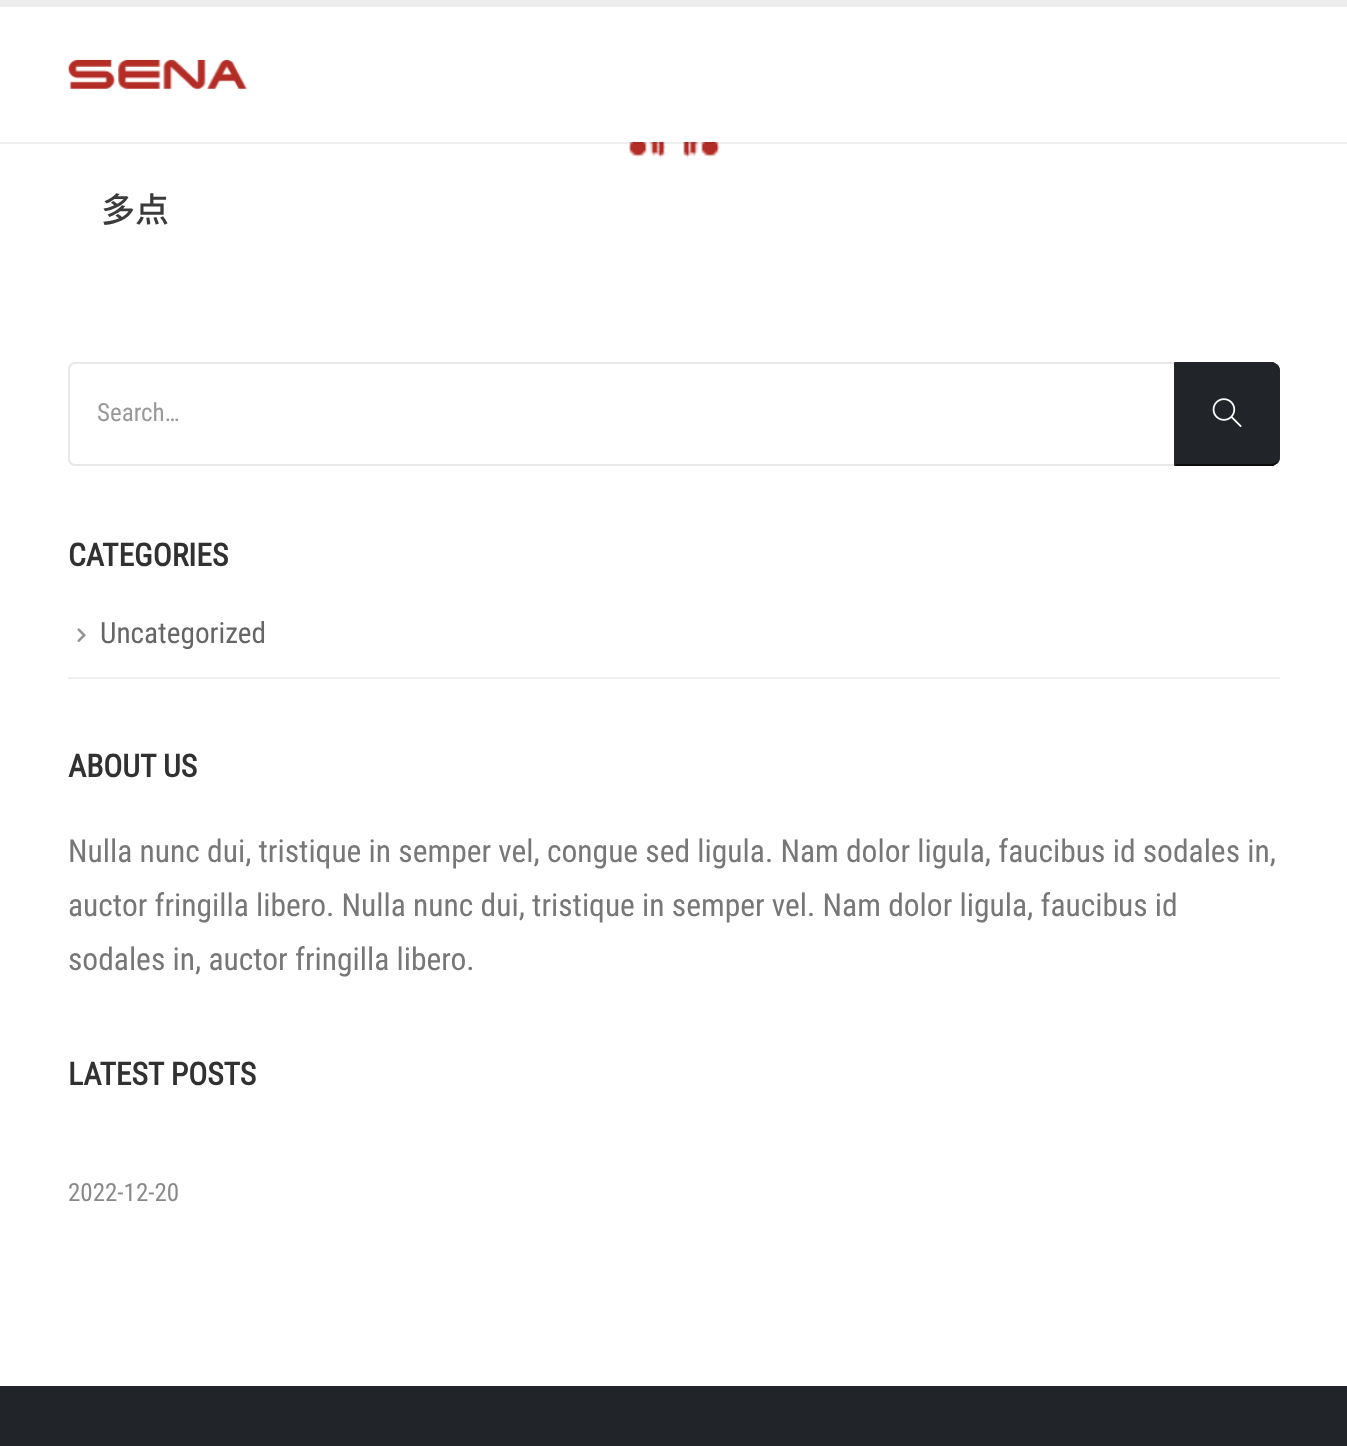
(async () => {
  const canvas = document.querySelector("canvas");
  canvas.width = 1347;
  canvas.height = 1446;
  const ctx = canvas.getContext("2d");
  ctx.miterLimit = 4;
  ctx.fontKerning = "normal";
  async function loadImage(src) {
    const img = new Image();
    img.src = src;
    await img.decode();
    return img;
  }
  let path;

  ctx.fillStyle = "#ffffff";
  ctx.fillRect(0, 0, 1347, 1446);
  ctx.drawImage(await loadImage("img/2.png"), 628, 142, 93, 16);
  ctx.fillStyle = "rgba(0, 0, 0, 0.06)";
  path = new Path2D("M0 142V144H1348V2V142Z");
  ctx.fill(path);
  ctx.fillStyle = "#ededed";
  ctx.fillRect(0, 0, 1347, 7);
  ctx.drawImage(await loadImage("img/1.png"), 68, 59, 180, 30);
  ctx.beginPath();
  ctx.roundRect(69, 363, 1107, 102, [6, 0, 0, 6]);
  ctx.strokeStyle = "#e8e8e8";
  ctx.lineWidth = 2;
  ctx.stroke();
  ctx.fillStyle = "#212529";
  ctx.beginPath();
  ctx.roundRect(1175, 362, 105, 104, [0, 9, 9, 0]);
  ctx.fill();
  path = new Path2D("M1177 364V365L1174 362H1273C1275 363 1276 364 1278 365L1276 366C1275 365 1273 364 1271 364Z");
  ctx.fill(path);
  path = new Path2D("M1278 365C1279 366 1280 369 1280 371V457C1280 459 1279 462 1278 463L1276 462L1278 458V370L1276 366Z");
  ctx.fill(path);
  ctx.fillStyle = "#0b0c0d";
  path = new Path2D("M1278 463C1276 464 1275 465 1273 466H1174L1177 463V464H1271C1273 464 1275 463 1276 462Z");
  ctx.fill(path);
  ctx.fillStyle = "#212529";
  path = new Path2D("M1174 466L1177 463V365L1174 362Z");
  ctx.fill(path);
  ctx.drawImage(await loadImage("img/3.png"), 1212, 398, 30, 29);
  ctx.fillStyle = "#f0f0f0";
  ctx.fillRect(68, 677, 1212, 2);
  ctx.drawImage(await loadImage("img/4.png"), 77, 628, 9, 14);
  ctx.fillStyle = "#212529";
  ctx.fillRect(0, 1386, 1347, 60);
  ctx.font = "500 34px Noto Sans SC";
  ctx.fillStyle = "#3b3b3c";
  ctx.fillText("多点", 101, 222);
  ctx.font = "25px Roboto Condensed";
  ctx.fillStyle = "#999999";
  ctx.fillText("Search…", 97, 421);
  ctx.font = "bold 31.5px Roboto Condensed";
  ctx.fillStyle = "#313131";
  ctx.fillText("CATEGORIES", 68, 566);
  ctx.font = "29.25px Roboto Condensed";
  ctx.fillStyle = "#666666";
  ctx.fillText("Uncategorized", 100, 643);
  ctx.font = "bold 31.5px Roboto Condensed";
  ctx.fillStyle = "#313131";
  ctx.fillText("ABOUT US", 68, 777);
  ctx.font = "31.5px Roboto Condensed";
  ctx.fillStyle = "#777777";
  for (const [text, x, y] of [
    ["Nulla nunc dui, tristique in semper vel, congue sed ligula. Nam dolor ligula, faucibus id sodales in,", 68, 862],
    ["auctor fringilla libero. Nulla nunc dui, tristique in semper vel. Nam dolor ligula, faucibus id", 68, 916],
    ["sodales in, auctor fringilla libero.", 68, 970],
  ]) {
    ctx.fillText(text, x, y);
  }
  ctx.font = "bold 31.5px Roboto Condensed";
  ctx.fillStyle = "#313131";
  ctx.fillText("LATEST POSTS", 68, 1085);
  ctx.font = "25px Roboto Condensed";
  ctx.fillStyle = "#898989";
  ctx.fillText("2022-12-20", 68, 1201);
})();
